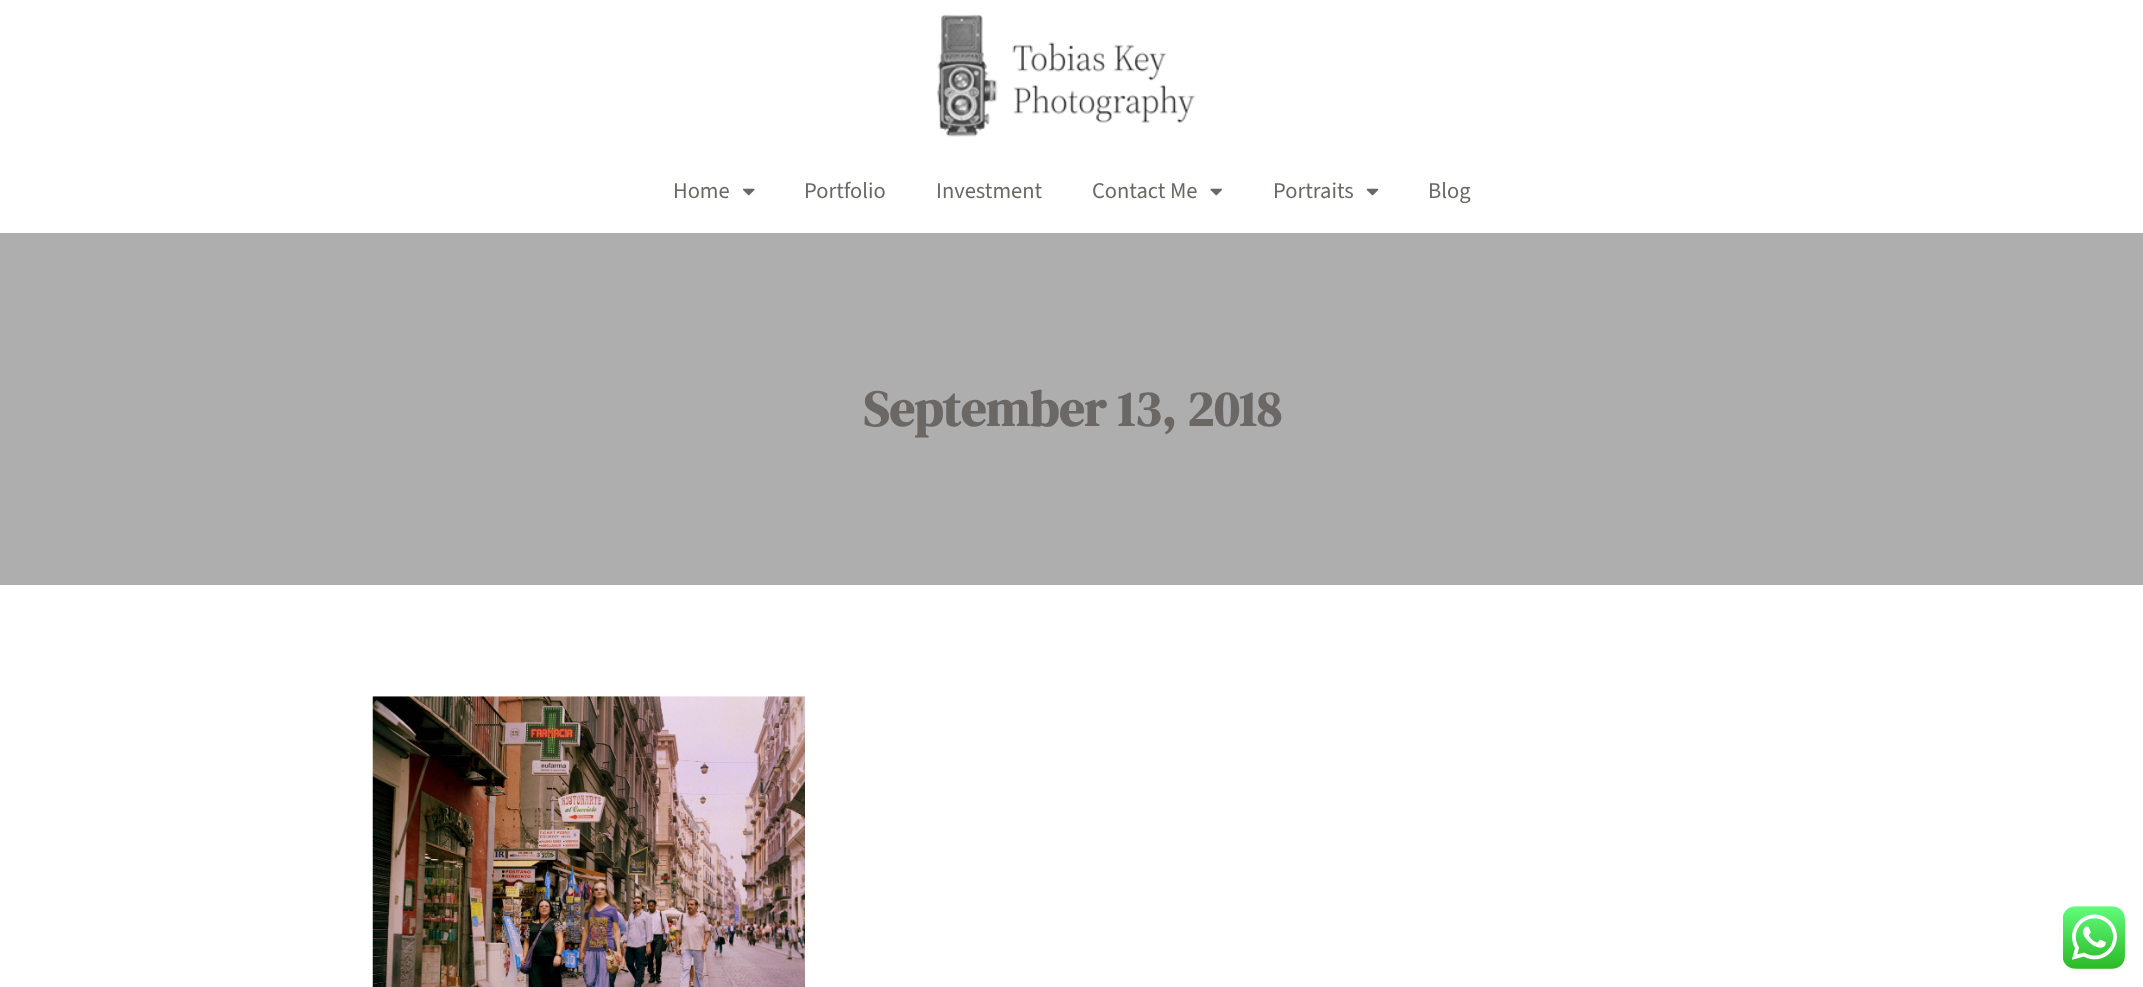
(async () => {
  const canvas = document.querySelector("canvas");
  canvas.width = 2143;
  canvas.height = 987;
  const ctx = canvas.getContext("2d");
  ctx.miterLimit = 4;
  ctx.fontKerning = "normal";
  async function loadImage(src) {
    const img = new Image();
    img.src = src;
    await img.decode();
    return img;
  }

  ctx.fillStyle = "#ffffff";
  ctx.fillRect(0, 0, 2143, 987);
  ctx.drawImage(await loadImage("img/1.png"), 936, 14, 259, 123);
  ctx.drawImage(await loadImage("img/2.png"), 743, 188, 12, 8);
  ctx.drawImage(await loadImage("img/3.png"), 1210, 188, 12, 8);
  ctx.drawImage(await loadImage("img/4.png"), 1366, 188, 13, 8);
  ctx.fillStyle = "#aeaeae";
  ctx.fillRect(0, 233, 2143, 352);
  ctx.drawImage(await loadImage("img/5.png"), 372, 696, 433, 291);
  ctx.drawImage(await loadImage("img/6.png"), 2063, 906, 62, 63);
  ctx.font = "22.5px 'Source Sans 3'";
  ctx.fillStyle = "#6b6764";
  for (const [text, x, y] of [
    ["Home", 673, 198],
    ["Portfolio", 804, 198],
    ["Investment", 936, 198],
    ["Contact Me", 1092, 198],
    ["Portraits", 1273, 198],
    ["Blog", 1428, 198],
  ]) {
    ctx.fillText(text, x, y);
  }
  ctx.font = "bold 50px DM Serif Display";
  ctx.fillText("September 13, 2018", 863, 426);
})();
